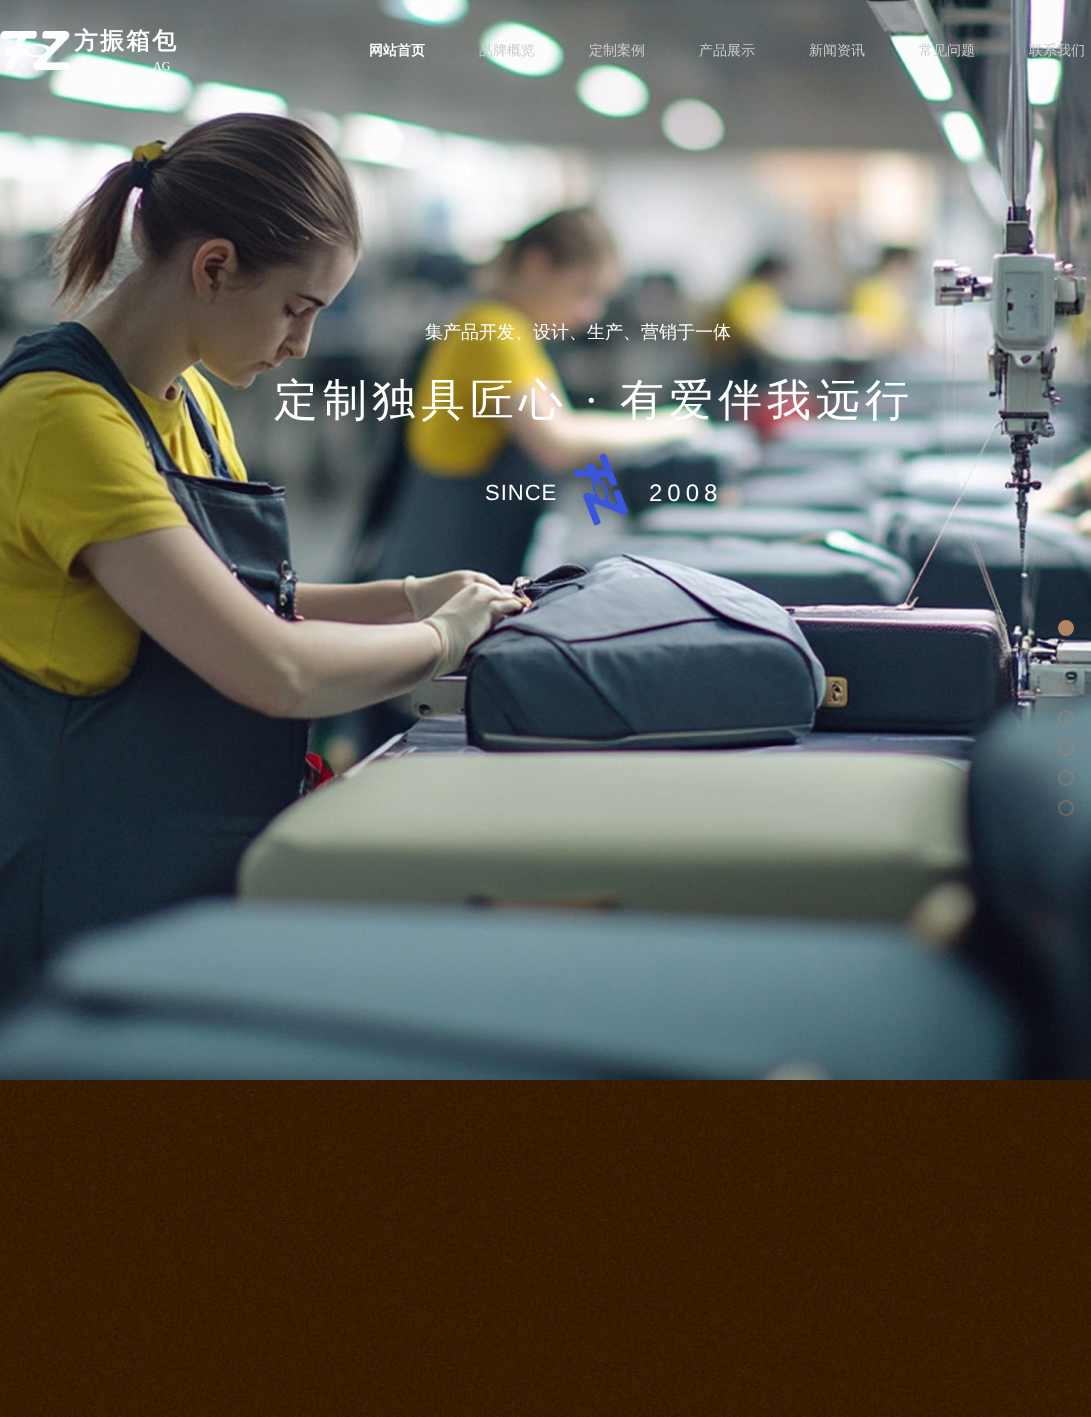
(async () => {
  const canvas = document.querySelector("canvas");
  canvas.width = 1091;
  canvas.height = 1417;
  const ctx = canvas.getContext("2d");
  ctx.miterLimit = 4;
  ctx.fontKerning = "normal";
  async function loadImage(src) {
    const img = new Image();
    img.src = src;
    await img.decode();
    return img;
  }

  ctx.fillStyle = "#ffffff";
  ctx.fillRect(0, 0, 1091, 1417);
  ctx.drawImage(await loadImage("img/1.png"), 0, 0, 1091, 1080);
  ctx.drawImage(await loadImage("img/2.png"), 0, 31, 70, 39);
  ctx.drawImage(await loadImage("img/3.png"), 573, 453, 56, 73);
  ctx.drawImage(await loadImage("img/4.png"), 0, 1080, 1091, 337);
  ctx.fillStyle = "#b28564";
  ctx.beginPath();
  ctx.arc(1066, 628, 7, 0, Math.PI * 2);
  ctx.fill();
  ctx.strokeStyle = "#b28564";
  ctx.lineWidth = 2;
  ctx.stroke();
  ctx.beginPath();
  ctx.arc(1066, 658, 7, 0, Math.PI * 2);
  ctx.strokeStyle = "rgba(178, 133, 100, 0.4)";
  ctx.stroke();
  ctx.beginPath();
  ctx.arc(1066, 688, 7, 0, Math.PI * 2);
  ctx.stroke();
  ctx.beginPath();
  ctx.arc(1066, 718, 7, 0, Math.PI * 2);
  ctx.stroke();
  ctx.beginPath();
  ctx.arc(1066, 748, 7, 0, Math.PI * 2);
  ctx.stroke();
  ctx.beginPath();
  ctx.arc(1066, 778, 7, 0, Math.PI * 2);
  ctx.stroke();
  ctx.beginPath();
  ctx.arc(1066, 808, 7, 0, Math.PI * 2);
  ctx.stroke();
  ctx.letterSpacing = "2px";
  ctx.font = "bold 24px WenQuanYi Zen Hei";
  ctx.fillStyle = "#ffffff";
  ctx.fillText("方振箱包", 74, 49);
  ctx.letterSpacing = "0px";
  ctx.font = "bold 14px WenQuanYi Zen Hei";
  ctx.fillText("网站首页", 369, 55);
  ctx.font = "500 14px WenQuanYi Zen Hei";
  ctx.fillStyle = "#cccccc";
  for (const [text, x, y] of [
    ["品牌概览", 479, 55],
    ["定制案例", 589, 55],
    ["产品展示", 699, 55],
    ["新闻资讯", 809, 55],
    ["常见问题", 919, 55],
    ["联系我们", 1029, 55],
  ]) {
    ctx.fillText(text, x, y);
  }
  ctx.font = "12px Liberation Serif";
  ctx.fillStyle = "#ffffff";
  ctx.fillText("AG", 153, 70);
  ctx.font = "500 18px WenQuanYi Zen Hei";
  ctx.fillText("集产品开发、设计、生产、营销于一体", 425, 338);
  ctx.letterSpacing = "5px";
  ctx.font = "500 44px WenQuanYi Zen Hei";
  ctx.fillText("定制独具匠心", 274, 415);
  ctx.font = "44px Liberation Serif";
  ctx.fillText("·", 584, 415);
  ctx.font = "500 44px WenQuanYi Zen Hei";
  ctx.fillText("有爱伴我远行", 620, 415);
  ctx.letterSpacing = "1px";
  ctx.font = "22px Liberation Sans";
  ctx.fillText("SINCE", 485, 500);
  ctx.letterSpacing = "5px";
  ctx.font = "24px Liberation Sans";
  ctx.fillText("2008", 649, 501);
})();
